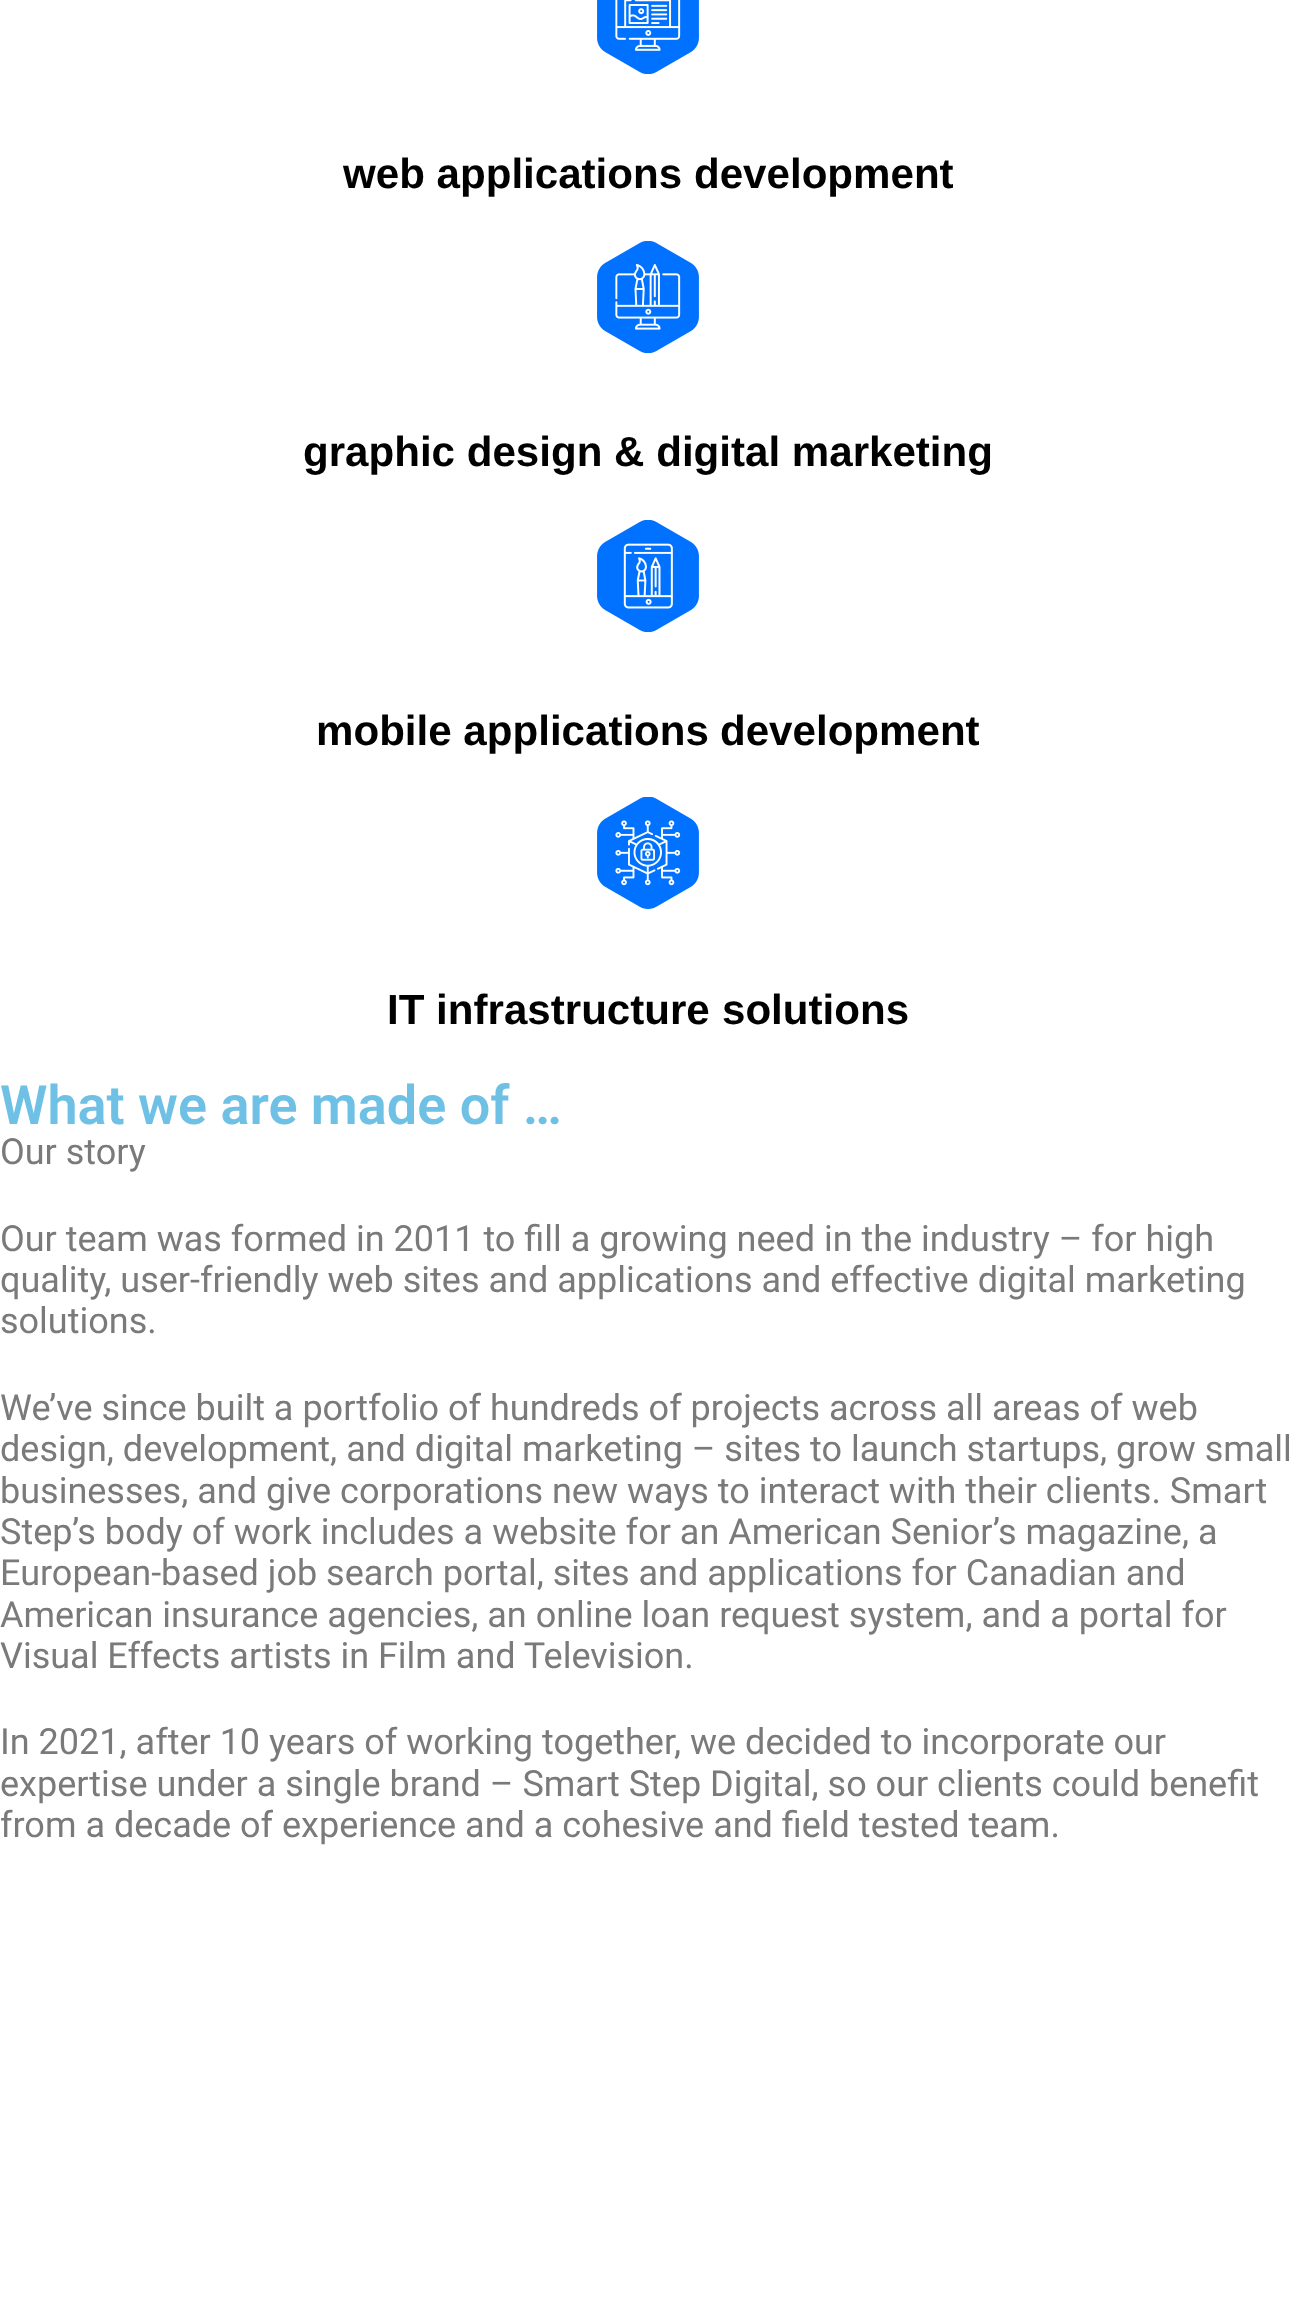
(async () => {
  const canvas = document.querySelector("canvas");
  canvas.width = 1295;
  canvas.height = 2309;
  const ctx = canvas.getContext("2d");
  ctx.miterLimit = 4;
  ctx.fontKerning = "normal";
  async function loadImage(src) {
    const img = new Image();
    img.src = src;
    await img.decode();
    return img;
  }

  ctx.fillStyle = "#ffffff";
  ctx.fillRect(0, 0, 1295, 2309);
  ctx.drawImage(await loadImage("img/1.png"), 597, 0, 102, 74);
  ctx.drawImage(await loadImage("img/2.png"), 597, 241, 102, 112);
  ctx.drawImage(await loadImage("img/3.png"), 597, 520, 102, 112);
  ctx.drawImage(await loadImage("img/4.png"), 597, 797, 102, 112);
  ctx.font = "bold 42.1px Liberation Sans";
  ctx.fillStyle = "#000000";
  for (const [text, x, y] of [
    ["web applications", 343, 188],
    ["development", 694, 188],
    ["graphic design & digital marketing", 303, 466],
    ["mobile applications", 316, 745],
    ["development", 720, 745],
    ["IT infrastructure", 387, 1024],
    ["solutions", 722, 1024],
  ]) {
    ctx.fillText(text, x, y);
  }
  ctx.font = "600 54px Roboto";
  ctx.fillStyle = "#6ec1e4";
  ctx.fillText("What we are made of …", 0, 1124);
  ctx.font = "36px Roboto";
  ctx.fillStyle = "#7a7a7a";
  for (const [text, x, y] of [
    ["Our story", 0, 1164],
    ["Our team was formed in 2011 to fill a growing need in the industry – for high", 0, 1251],
    ["quality, user-friendly web sites and applications and effective digital marketing", 0, 1292],
    ["solutions.", 0, 1333],
    ["We’ve since built a portfolio of hundreds of projects across all areas of web", 0, 1420],
    ["design, development, and digital marketing – sites to launch startups, grow small", 0, 1461],
    ["businesses, and give corporations new ways to interact with their clients. Smart", 0, 1503],
    ["Step’s body of work includes a website for an American Senior’s magazine, a", 0, 1544],
    ["European-based job search portal, sites and applications for Canadian and", 0, 1585],
    ["American insurance agencies, an online loan request system, and a portal for", 0, 1627],
    ["Visual Effects artists in Film and Television.", 0, 1668],
    ["In 2021, after 10 years of working together, we decided to incorporate our", 0, 1754],
    ["expertise under a single brand – Smart Step Digital, so our clients could benefit", 0, 1796],
    ["from a decade of experience and a cohesive and field tested team.", 0, 1837],
  ]) {
    ctx.fillText(text, x, y);
  }
})();
